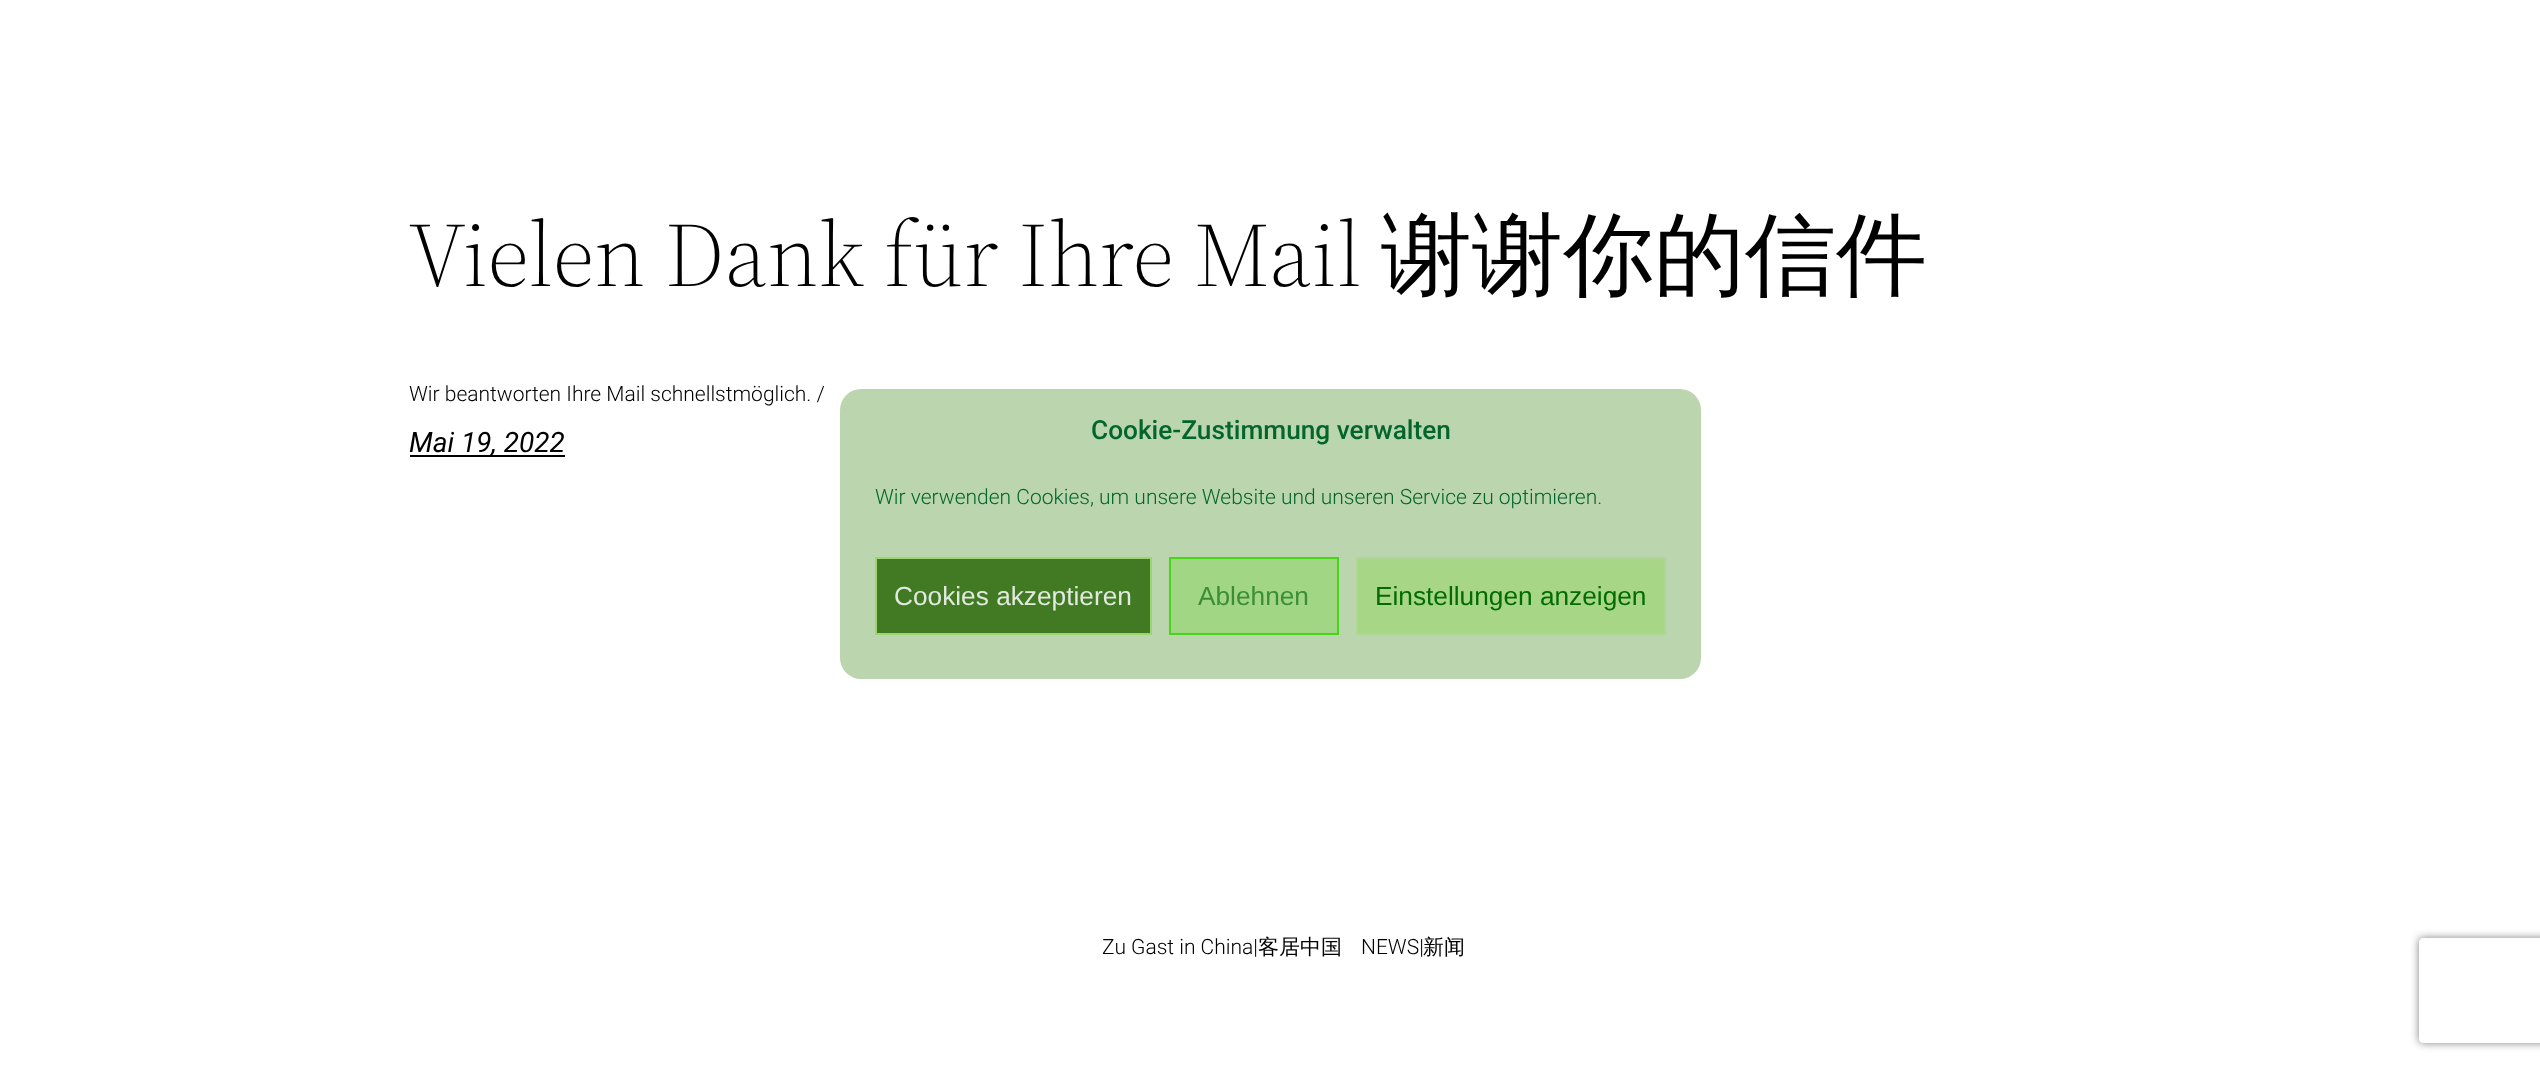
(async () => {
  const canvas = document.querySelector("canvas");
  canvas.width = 2540;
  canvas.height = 1066;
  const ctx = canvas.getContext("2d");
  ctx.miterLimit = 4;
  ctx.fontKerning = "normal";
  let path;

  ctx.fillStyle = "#ffffff";
  ctx.fillRect(0, 0, 2540, 1066);
  ctx.fillStyle = "#000000";
  ctx.fillRect(410, 455, 155, 2);
  ctx.fillStyle = "#bbd6af";
  ctx.beginPath();
  ctx.roundRect(840, 389, 861, 290, 21);
  ctx.fill();
  ctx.fillStyle = "#417a23";
  ctx.beginPath();
  ctx.rect(876, 558, 275, 76);
  ctx.fill();
  ctx.strokeStyle = "#9cd673";
  ctx.lineWidth = 2;
  ctx.stroke();
  ctx.fillStyle = "#a1d684";
  ctx.beginPath();
  ctx.rect(1170, 558, 168, 76);
  ctx.fill();
  ctx.strokeStyle = "#47d617";
  ctx.stroke();
  ctx.fillStyle = "#a7d686";
  ctx.beginPath();
  ctx.rect(1357, 558, 308, 76);
  ctx.fill();
  ctx.strokeStyle = "#b0d695";
  ctx.stroke();
  ctx.save();
  path = new Path2D("M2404 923H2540V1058H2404ZM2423 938H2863C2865 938 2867 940 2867 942V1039C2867 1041 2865 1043 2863 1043H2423C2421 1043 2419 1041 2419 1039V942C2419 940 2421 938 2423 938Z");
  ctx.clip(path, "evenodd");
  ctx.fillStyle = "#808080";
  ctx.filter = "blur(4.5px)";
  ctx.beginPath();
  ctx.roundRect(2419, 938, 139, 105, 4);
  ctx.fill();
  ctx.filter = "none";
  ctx.restore();
  ctx.font = "300 91px 'Source Serif 4'";
  ctx.fillStyle = "#000000";
  ctx.fillText("Vielen Dank für Ihre Mail", 409, 286);
  ctx.font = "500 91px WenQuanYi Zen Hei";
  ctx.fillText("谢谢你的信件", 1381, 286);
  ctx.font = "300 21px Roboto";
  ctx.fillText("Wir beantworten Ihre Mail schnellstmöglich. /", 409, 401);
  ctx.font = "italic 28px Roboto";
  ctx.fillText("Mai 19, 2022", 409, 452);
  ctx.font = "300 21px Roboto";
  ctx.fillText("Zu Gast in China|", 1102, 954);
  ctx.font = "500 21px WenQuanYi Zen Hei";
  ctx.fillText("客居中国", 1258, 954);
  ctx.font = "300 21px Roboto";
  ctx.fillText("NEWS|", 1361, 954);
  ctx.font = "500 21px WenQuanYi Zen Hei";
  ctx.fillText("新闻", 1423, 954);
  ctx.font = "500 26.25px Roboto";
  ctx.fillStyle = "#02662a";
  ctx.fillText("Cookie-Zustimmung verwalten", 1091, 439);
  ctx.font = "300 21px Roboto";
  ctx.fillText("Wir verwenden Cookies, um unsere Website und unseren Service zu optimieren.", 875, 504);
  ctx.font = "26.25px Liberation Sans";
  ctx.fillStyle = "#e1eade";
  ctx.fillText("Cookies akzeptieren", 894, 605);
  ctx.fillStyle = "#3c8e36";
  ctx.fillText("Ablehnen", 1198, 605);
  ctx.fillStyle = "#026b01";
  ctx.fillText("Einstellungen anzeigen", 1375, 605);
})();
